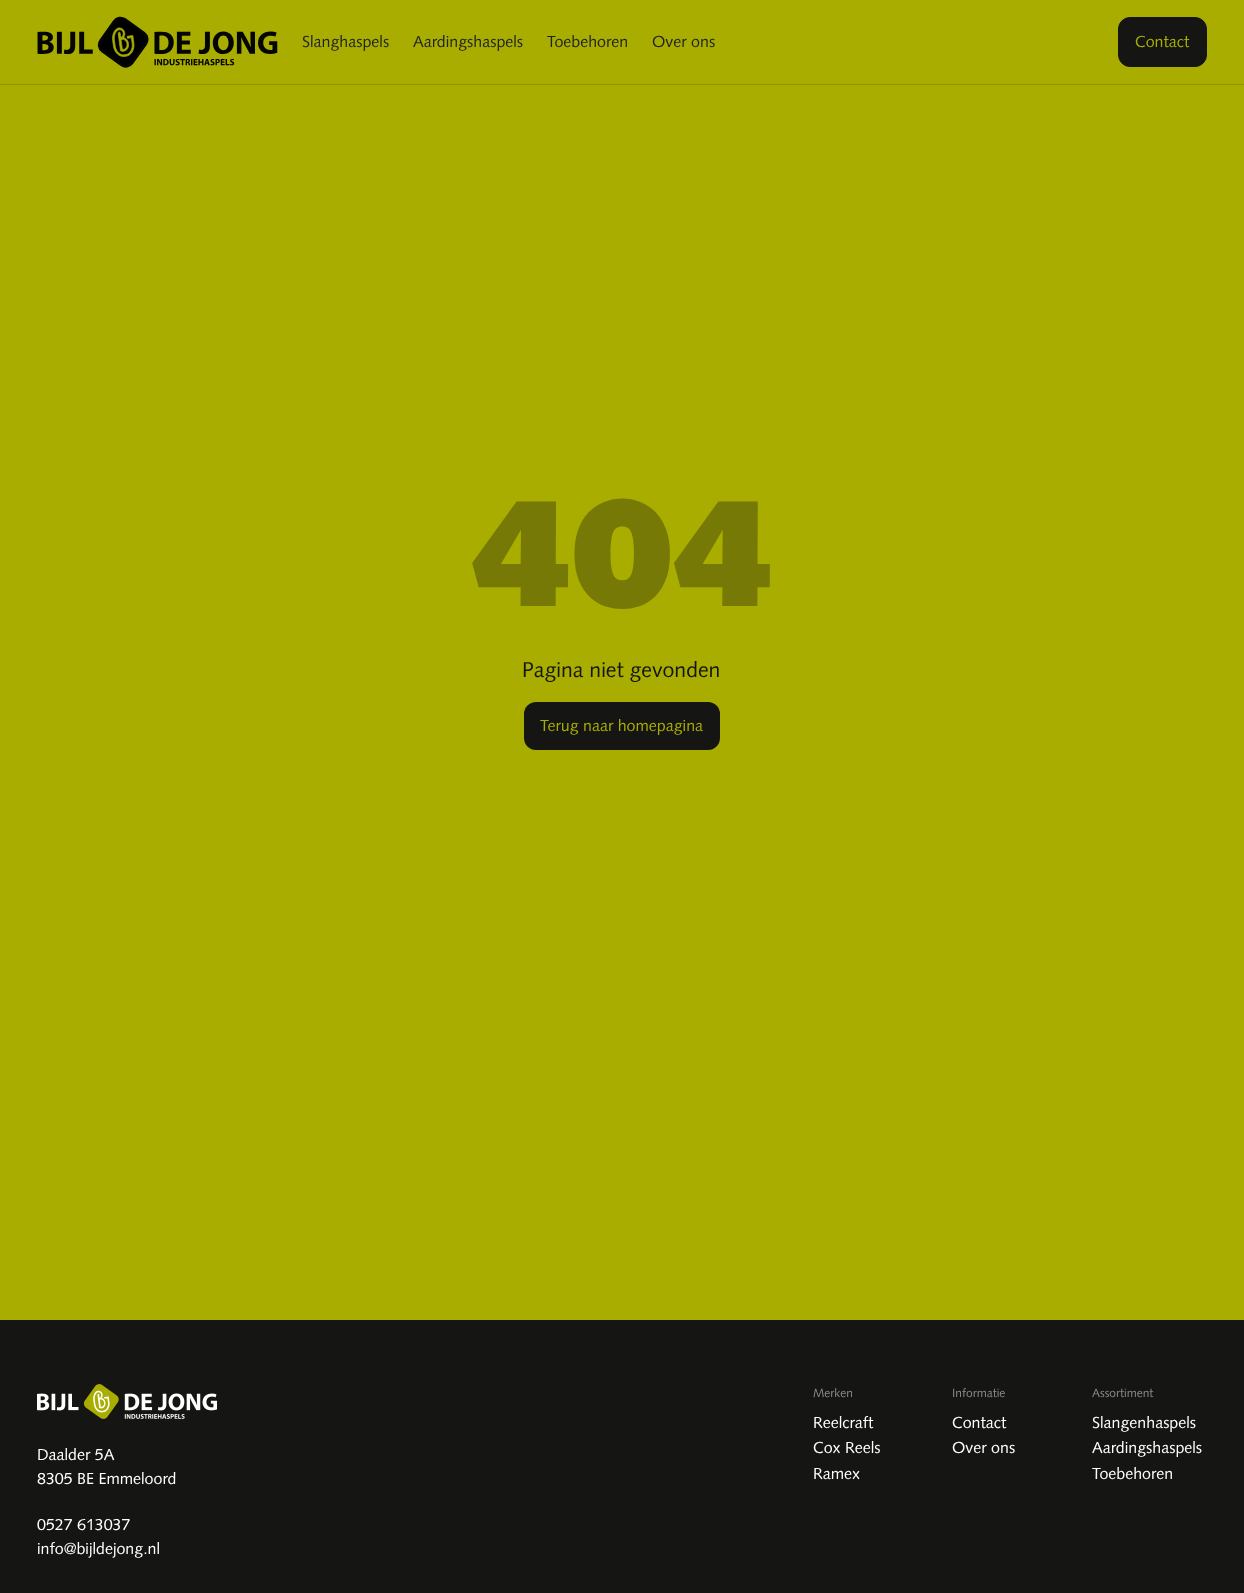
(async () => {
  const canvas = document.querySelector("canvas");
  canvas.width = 1244;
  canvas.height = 1593;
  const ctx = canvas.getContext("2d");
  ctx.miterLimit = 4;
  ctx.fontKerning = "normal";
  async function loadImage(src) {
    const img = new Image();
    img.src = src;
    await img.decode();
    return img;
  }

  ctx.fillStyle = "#a8ad00";
  ctx.fillRect(0, 0, 1244, 1593);
  ctx.fillStyle = "#909401";
  ctx.fillRect(0, 84, 1244, 1);
  ctx.drawImage(await loadImage("img/1.png"), 37, 16, 241, 52);
  ctx.fillStyle = "#151513";
  ctx.beginPath();
  ctx.roundRect(1118.5, 17.5, 88, 49, 11.5);
  ctx.fill();
  ctx.strokeStyle = "#151513";
  ctx.stroke();
  ctx.beginPath();
  ctx.roundRect(524, 702, 196, 48, 12);
  ctx.fill();
  ctx.fillRect(0, 1320, 1244, 273);
  ctx.drawImage(await loadImage("img/2.png"), 37, 1384, 180, 35);
  ctx.font = "16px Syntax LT";
  ctx.fillStyle = "#1f2124";
  for (const [text, x, y] of [
    ["Slanghaspels", 302, 47],
    ["Aardingshaspels", 413, 47],
    ["Toebehoren", 547, 47],
    ["Over ons", 652, 47],
  ]) {
    ctx.fillText(text, x, y);
  }
  ctx.fillStyle = "#a8ad00";
  ctx.fillText("Contact", 1135, 47);
  ctx.font = "800 151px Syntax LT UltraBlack";
  ctx.fillStyle = "#767906";
  ctx.fillText("404", 471, 606);
  ctx.font = "21.25px Syntax LT";
  ctx.fillStyle = "#151513";
  ctx.fillText("Pagina niet gevonden", 522, 677);
  ctx.font = "16px Syntax LT";
  ctx.fillStyle = "#a8ad00";
  ctx.fillText("Terug naar homepagina", 540, 731);
  ctx.font = "12px Syntax LT";
  ctx.fillStyle = "#8a8a89";
  ctx.fillText("Merken", 813, 1397);
  ctx.font = "16px Syntax LT";
  ctx.fillStyle = "#ffffff";
  for (const [text, x, y] of [
    ["Reelcraft", 813, 1428],
    ["Cox Reels", 813, 1453],
    ["Ramex", 813, 1479],
  ]) {
    ctx.fillText(text, x, y);
  }
  ctx.font = "12px Syntax LT";
  ctx.fillStyle = "#8a8a89";
  ctx.fillText("Informatie", 952, 1397);
  ctx.font = "16px Syntax LT";
  ctx.fillStyle = "#ffffff";
  ctx.fillText("Contact", 952, 1428);
  ctx.fillText("Over ons", 952, 1453);
  ctx.font = "12px Syntax LT";
  ctx.fillStyle = "#8a8a89";
  ctx.fillText("Assortiment", 1092, 1397);
  ctx.font = "16px Syntax LT";
  ctx.fillStyle = "#ffffff";
  for (const [text, x, y] of [
    ["Slangenhaspels", 1092, 1428],
    ["Aardingshaspels", 1092, 1453],
    ["Toebehoren", 1092, 1479],
    ["Daalder 5A", 37, 1460],
    ["8305 BE Emmeloord", 37, 1484],
    ["0527 613037", 37, 1530],
    ["info@bijldejong.nl", 37, 1554],
  ]) {
    ctx.fillText(text, x, y);
  }
})();
